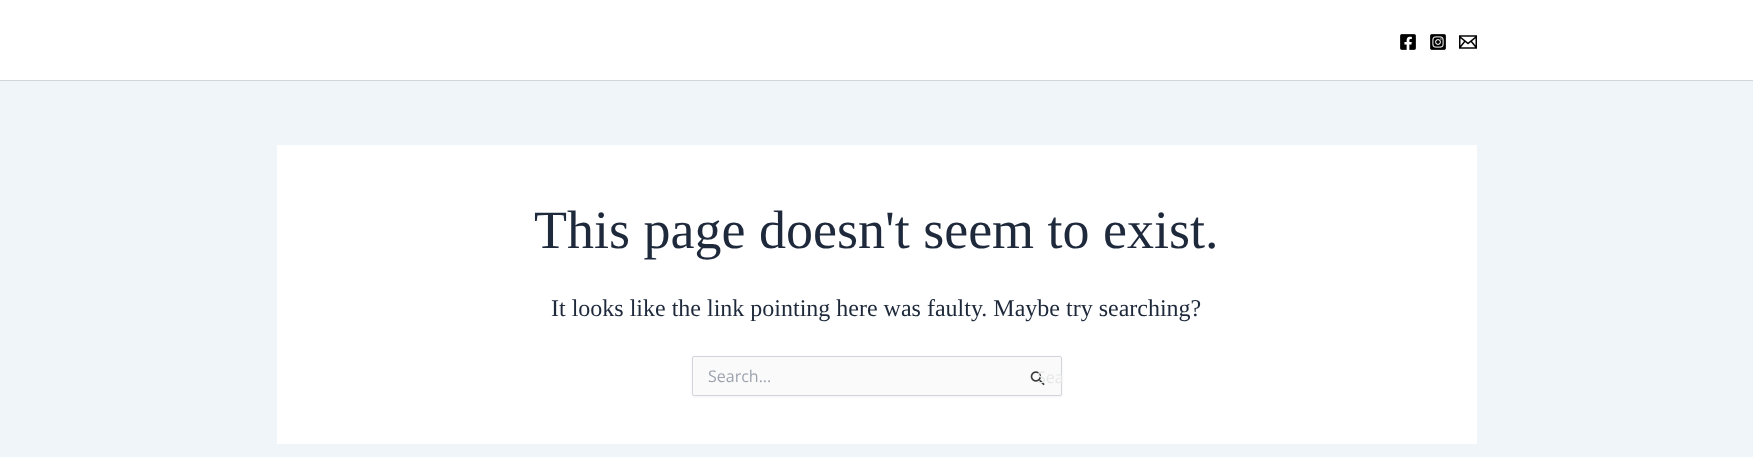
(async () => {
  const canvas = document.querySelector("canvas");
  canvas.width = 1753;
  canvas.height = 457;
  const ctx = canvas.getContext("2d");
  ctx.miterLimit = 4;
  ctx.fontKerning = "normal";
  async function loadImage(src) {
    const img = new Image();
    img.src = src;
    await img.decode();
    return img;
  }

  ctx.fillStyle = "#f0f5fa";
  ctx.fillRect(0, 0, 1753, 457);
  ctx.fillStyle = "#ffffff";
  ctx.fillRect(0, 0, 1753, 80);
  ctx.fillStyle = "#d1d5db";
  ctx.fillRect(0, 80, 1753, 1);
  ctx.drawImage(await loadImage("img/1.png"), 1400, 34, 16, 16);
  ctx.drawImage(await loadImage("img/2.png"), 1430, 34, 16, 16);
  ctx.drawImage(await loadImage("img/3.png"), 1459, 35, 18, 14);
  ctx.fillStyle = "#ffffff";
  ctx.fillRect(277, 145, 1200, 299);
  ctx.fillStyle = "rgba(0, 0, 0, 0.05)";
  ctx.filter = "blur(1px)";
  ctx.beginPath();
  ctx.roundRect(692, 357, 370, 40, 2);
  ctx.fill();
  ctx.filter = "none";
  ctx.fillStyle = "#fafafa";
  ctx.beginPath();
  ctx.roundRect(692.5, 356.5, 369, 39, 1.5);
  ctx.fill();
  ctx.strokeStyle = "#d1d5db";
  ctx.stroke();
  ctx.drawImage(await loadImage("img/4.png"), 1030, 371, 15, 15);
  ctx.font = "54px Liberation Serif";
  ctx.fillStyle = "#1e293b";
  ctx.fillText("This page doesn't seem to exist.", 534, 248);
  ctx.font = "24px Liberation Serif";
  ctx.fillText("It looks like the link pointing here was faulty. Maybe try searching?", 551, 316);
  ctx.font = "16px Open Sans";
  ctx.fillStyle = "#9ca3af";
  ctx.fillText("Search...", 708, 382);
  ctx.fillStyle = "#e6e7e7";
  ctx.fillText("Sea", 1037, 383);
})();
